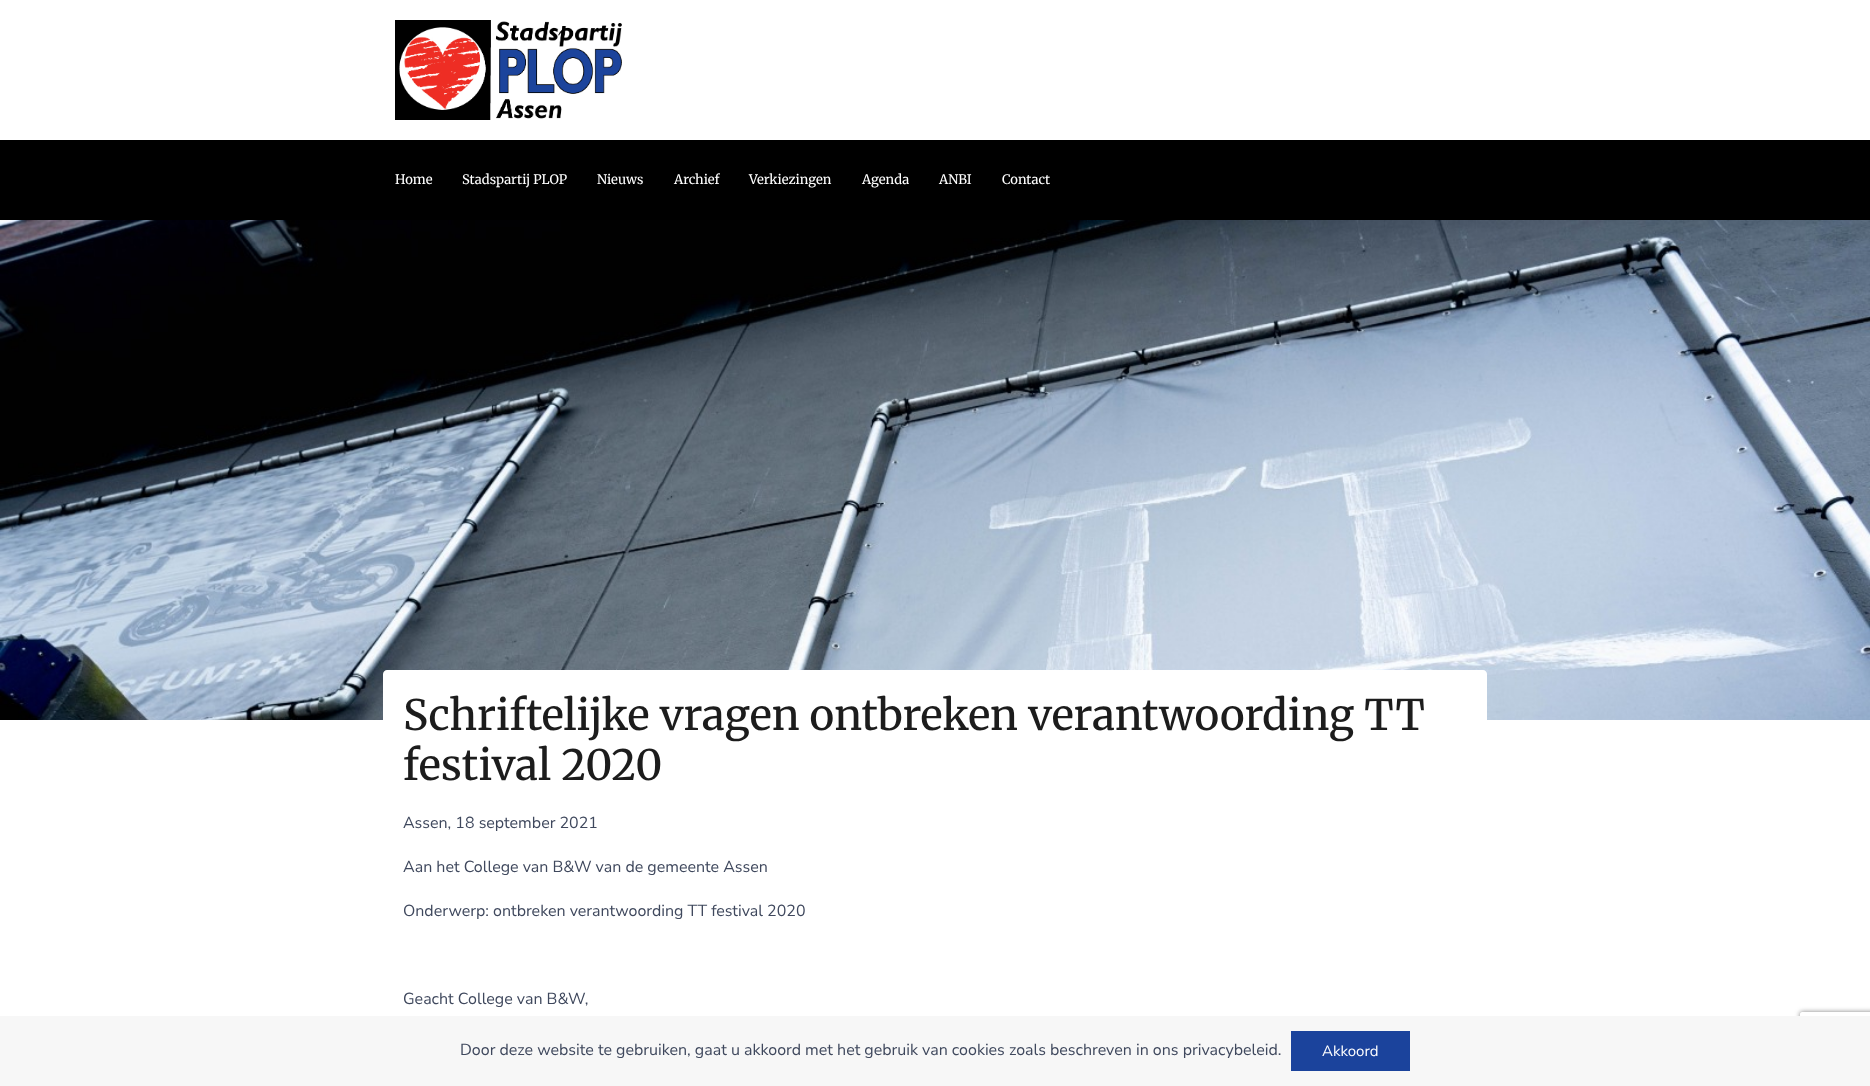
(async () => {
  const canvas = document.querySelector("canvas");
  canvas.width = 1870;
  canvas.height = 1086;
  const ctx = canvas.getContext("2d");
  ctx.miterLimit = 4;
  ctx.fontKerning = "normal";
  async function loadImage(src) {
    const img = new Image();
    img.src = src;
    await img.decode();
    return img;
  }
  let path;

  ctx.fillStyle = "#ffffff";
  ctx.fillRect(0, 0, 1870, 1086);
  ctx.drawImage(await loadImage("img/1.png"), 395, 20, 227, 100);
  ctx.fillStyle = "#000000";
  ctx.fillRect(0, 140, 1870, 80);
  ctx.drawImage(await loadImage("img/2.png"), 0, 220, 1870, 500);
  ctx.fillStyle = "#ffffff";
  path = new Path2D("M387 670H1483C1485 670 1487 672 1487 674V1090H383V674C383 672 385 670 387 670Z");
  ctx.fill(path);
  ctx.save();
  path = new Path2D("M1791 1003H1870V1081H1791ZM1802 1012H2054C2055 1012 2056 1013 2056 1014V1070C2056 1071 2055 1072 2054 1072H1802C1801 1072 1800 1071 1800 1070V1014C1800 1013 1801 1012 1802 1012Z");
  ctx.clip(path, "evenodd");
  ctx.fillStyle = "#808080";
  ctx.filter = "blur(2.5px)";
  ctx.beginPath();
  ctx.roundRect(1800, 1012, 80, 60, 2);
  ctx.fill();
  ctx.filter = "none";
  ctx.restore();
  ctx.fillStyle = "#f7f7f7";
  ctx.fillRect(0, 1016, 1870, 70);
  ctx.fillStyle = "#1b439c";
  ctx.fillRect(1291, 1031, 119, 40);
  ctx.font = "13px Merriweather";
  ctx.fillStyle = "#ffffff";
  for (const [text, x, y] of [
    ["Home", 395, 184],
    ["Stadspartij PLOP", 462, 184],
    ["Nieuws", 597, 184],
    ["Archief", 674, 184],
    ["Verkiezingen", 749, 184],
    ["Agenda", 862, 184],
    ["ANBI", 939, 184],
    ["Contact", 1002, 184],
  ]) {
    ctx.fillText(text, x, y);
  }
  ctx.font = "500 42px Merriweather";
  ctx.fillStyle = "#1c1c1c";
  ctx.fillText("Schriftelijke vragen ontbreken verantwoording TT", 403, 730);
  ctx.fillText("festival 2020", 403, 780);
  ctx.font = "16px Nunito Sans";
  ctx.fillStyle = "#3f485d";
  for (const [text, x, y] of [
    ["Assen, 18 september 2021", 403, 828],
    ["Aan het College van B&W van de gemeente Assen", 403, 872],
    ["Onderwerp: ontbreken verantwoording TT festival 2020", 403, 916],
    ["Geacht College van B&W,", 403, 1004],
    ["Door deze website te gebruiken, gaat u akkoord met het gebruik van cookies zoals beschreven in ons privacybeleid.", 460, 1055],
  ]) {
    ctx.fillText(text, x, y);
  }
  ctx.font = "15px Nunito Sans";
  ctx.fillStyle = "#ffffff";
  ctx.fillText("Akkoord", 1322, 1056);
})();
